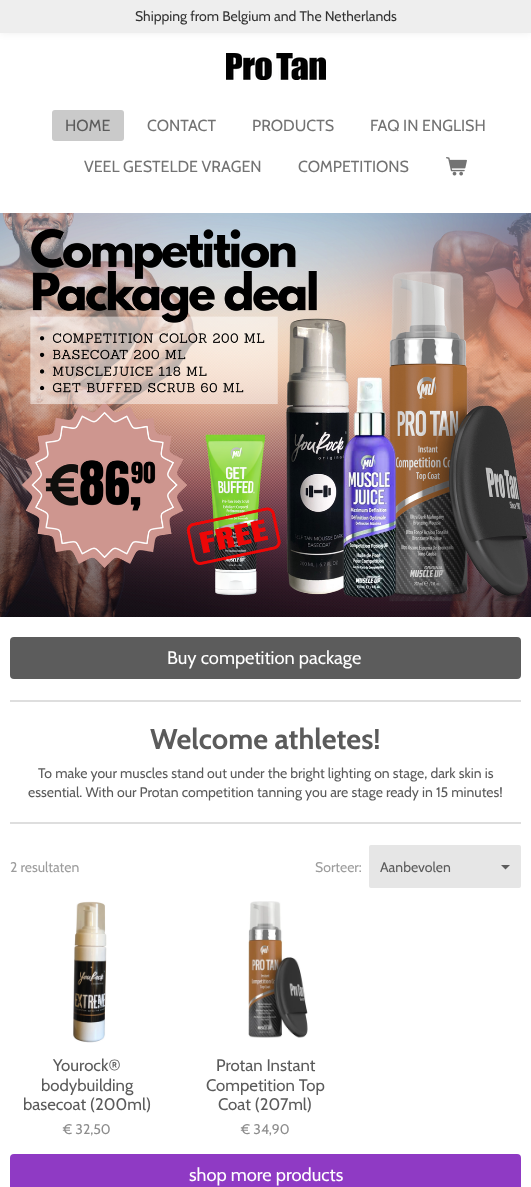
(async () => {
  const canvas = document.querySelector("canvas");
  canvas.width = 531;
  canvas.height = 1187;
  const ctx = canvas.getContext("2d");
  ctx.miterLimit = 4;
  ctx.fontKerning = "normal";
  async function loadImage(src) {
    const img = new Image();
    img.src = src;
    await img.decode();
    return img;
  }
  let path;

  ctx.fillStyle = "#ffffff";
  ctx.fillRect(0, 0, 531, 1187);
  ctx.fillStyle = "rgba(0, 0, 0, 0.1)";
  ctx.filter = "blur(5px)";
  ctx.beginPath();
  ctx.rect(0, -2, 531, 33);
  ctx.fill();
  ctx.filter = "none";
  ctx.fillStyle = "#eeeeee";
  ctx.fillRect(0, 0, 531, 33);
  ctx.drawImage(await loadImage("img/1.png"), 226, 53, 100, 27);
  ctx.fillStyle = "#cacaca";
  ctx.beginPath();
  ctx.roundRect(52, 110, 72, 31, 3);
  ctx.fill();
  ctx.drawImage(await loadImage("img/2.png"), 446, 157, 21, 19);
  ctx.drawImage(await loadImage("img/3.png"), 0, 213, 531, 404);
  ctx.fillStyle = "#5c5c5c";
  ctx.beginPath();
  ctx.roundRect(10, 637, 511, 42, 4);
  ctx.fill();
  ctx.fillStyle = "#dedede";
  ctx.fillRect(10, 700, 511, 2);
  ctx.fillRect(10, 822, 511, 2);
  ctx.fillStyle = "#e6e6e6";
  ctx.beginPath();
  ctx.roundRect(369, 845, 152, 43, 2);
  ctx.fill();
  ctx.fillStyle = "#5c5c5c";
  path = new Path2D("M505.5 869.5L501 865H510Z");
  ctx.fill(path);
  ctx.drawImage(await loadImage("img/4.png"), 73, 901, 34, 142);
  ctx.drawImage(await loadImage("img/5.png"), 248, 901, 60, 137);
  ctx.fillStyle = "#8f3ac4";
  ctx.beginPath();
  ctx.roundRect(10, 1154, 511, 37, 4);
  ctx.fill();
  ctx.font = "14px Cabin";
  ctx.fillStyle = "#333333";
  ctx.fillText("Shipping from Belgium and The Netherlands", 135, 21);
  ctx.font = "16px Cabin";
  ctx.fillStyle = "#5b5b5b";
  ctx.fillText("HOME", 65, 131);
  ctx.fillStyle = "#737373";
  for (const [text, x, y] of [
    ["CONTACT", 147, 131],
    ["PRODUCTS", 252, 131],
    ["FAQ IN ENGLISH", 370, 131],
    ["VEEL GESTELDE VRAGEN", 84, 172],
    ["COMPETITIONS", 298, 172],
  ]) {
    ctx.fillText(text, x, y);
  }
  ctx.font = "18.25px Cabin";
  ctx.fillStyle = "#ffffff";
  ctx.fillText("Buy competition package", 167, 664);
  ctx.font = "bold 28.75px Cabin";
  ctx.fillStyle = "#5b5b5b";
  ctx.fillText("Welcome athletes!", 150, 749);
  ctx.font = "14px Cabin";
  ctx.fillText("To make your muscles stand out under the bright lighting on stage, dark skin is", 38, 778);
  ctx.fillText("essential. With our Protan competition tanning you are stage ready in 15 minutes!", 28, 797);
  ctx.fillStyle = "#9d9d9d";
  ctx.fillText("2 resultaten", 10, 872);
  ctx.fillText("Sorteer:", 315, 872);
  ctx.fillStyle = "#5b5b5b";
  ctx.fillText("Aanbevolen", 380, 872);
  ctx.font = "16.75px Cabin";
  for (const [text, x, y] of [
    ["Yourock®", 53, 1071],
    ["bodybuilding", 41, 1091],
    ["basecoat (200ml)", 23, 1110],
  ]) {
    ctx.fillText(text, x, y);
  }
  ctx.font = "14px Cabin";
  ctx.fillStyle = "#8d8d8d";
  ctx.fillText("€ 32,50", 63, 1134);
  ctx.font = "16.75px Cabin";
  ctx.fillStyle = "#5b5b5b";
  for (const [text, x, y] of [
    ["Protan Instant", 216, 1071],
    ["Competition Top", 206, 1091],
    ["Coat (207ml)", 218, 1110],
  ]) {
    ctx.fillText(text, x, y);
  }
  ctx.font = "14px Cabin";
  ctx.fillStyle = "#8d8d8d";
  ctx.fillText("€ 34,90", 241, 1134);
  ctx.font = "18.25px Cabin";
  ctx.fillStyle = "#ffffff";
  ctx.fillText("shop more products", 189, 1181);
})();
